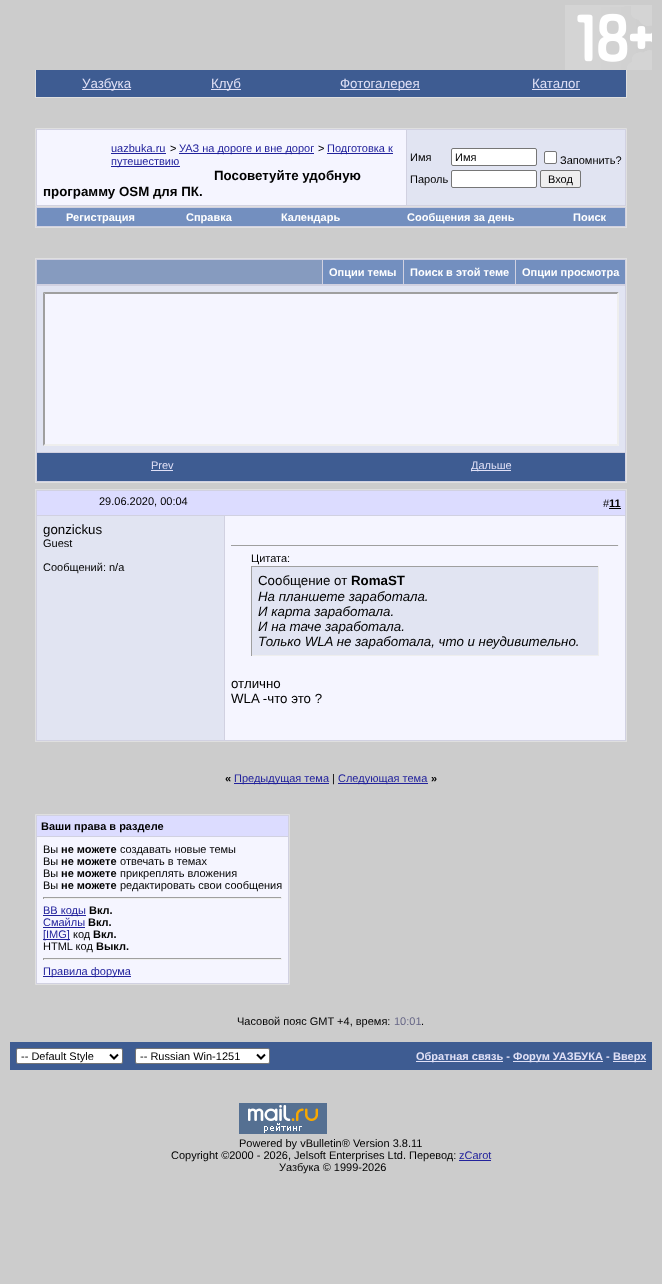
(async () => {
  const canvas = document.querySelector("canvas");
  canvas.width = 662;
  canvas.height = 1284;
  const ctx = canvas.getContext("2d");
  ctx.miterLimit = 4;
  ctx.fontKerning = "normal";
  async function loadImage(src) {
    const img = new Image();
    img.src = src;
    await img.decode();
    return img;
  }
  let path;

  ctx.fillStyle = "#cccccc";
  ctx.fillRect(0, 0, 662, 1284);
  ctx.drawImage(await loadImage("img/1.png"), 565, 5, 87, 65);
  for (const [x, y, w, h, color] of [
    [626, 70, 1, 28, "#dfdfdf"],
    [35, 97, 592, 1, "#dfdfdf"],
    [35, 70, 1, 28, "#dfdfdf"],
    [36, 70, 590, 27, "#3e5c92"],
    [82, 89, 49, 1, "#e0e0f6"],
    [211, 89, 30, 1, "#e0e0f6"],
    [340, 89, 80, 1, "#e0e0f6"],
    [532, 89, 48, 1, "#e0e0f6"],
  ]) {
    ctx.fillStyle = color;
    ctx.fillRect(x, y, w, h);
  }
  ctx.fillStyle = "#d1d1e1";
  ctx.beginPath();
  ctx.rect(35.5, 128.5, 591, 78);
  ctx.fill();
  ctx.strokeStyle = "#dfdfdf";
  ctx.stroke();
  for (const [x, y, w, h, color] of [
    [37, 130, 369, 75, "#f5f5ff"],
    [111, 153, 55, 1, "#22229c"],
    [179, 153, 135, 1, "#22229c"],
    [327, 153, 66, 1, "#22229c"],
    [111, 166, 69, 1, "#22229c"],
    [407, 130, 218, 75, "#e1e4f2"],
  ]) {
    ctx.fillStyle = color;
    ctx.fillRect(x, y, w, h);
  }
  ctx.fillStyle = "#ffffff";
  ctx.beginPath();
  ctx.roundRect(451.5, 148.5, 85, 17, 1.5);
  ctx.fill();
  ctx.strokeStyle = "#767676";
  ctx.stroke();
  ctx.beginPath();
  ctx.roundRect(544.5, 151.5, 12, 12, 1.5);
  ctx.fill();
  ctx.stroke();
  ctx.beginPath();
  ctx.roundRect(451.5, 170.5, 85, 17, 1.5);
  ctx.fill();
  ctx.stroke();
  ctx.fillStyle = "#efefef";
  ctx.beginPath();
  ctx.roundRect(540.5, 170.5, 40, 17, 1.5);
  ctx.fill();
  ctx.stroke();
  for (const [x, y, w, h, color] of [
    [36, 207, 590, 20, "#d1d1e1"],
    [626, 207, 1, 21, "#dfdfdf"],
    [35, 227, 592, 1, "#dfdfdf"],
    [35, 207, 1, 21, "#dfdfdf"],
    [37, 208, 588, 18, "#738fbf"],
    [36, 259, 590, 223, "#d1d1e1"],
    [35, 258, 592, 1, "#dfdfdf"],
    [626, 258, 1, 225, "#dfdfdf"],
    [35, 258, 1, 27, "#dfdfdf"],
    [37, 260, 285, 24, "#869bbf"],
    [323, 260, 80, 24, "#738fbf"],
    [404, 260, 111, 24, "#738fbf"],
    [516, 260, 109, 24, "#738fbf"],
    [35, 482, 592, 1, "#dfdfdf"],
    [35, 285, 1, 198, "#dfdfdf"],
    [37, 286, 588, 166, "#e1e4f2"],
    [43, 292, 576, 154, "#f5f5ff"],
  ]) {
    ctx.fillStyle = color;
    ctx.fillRect(x, y, w, h);
  }
  ctx.fillStyle = "#9f9f9f";
  path = new Path2D("M43 292H619L617 294H45Z");
  ctx.fill(path);
  ctx.fillStyle = "#eeeeee";
  path = new Path2D("M619 292V446L617 444V294Z");
  ctx.fill(path);
  path = new Path2D("M619 446H43L45 444H617Z");
  ctx.fill(path);
  ctx.fillStyle = "#9f9f9f";
  path = new Path2D("M43 446V292L45 294V444Z");
  ctx.fill(path);
  for (const [x, y, w, h, color] of [
    [37, 453, 588, 28, "#3e5c92"],
    [151, 470, 22, 1, "#e0e0f6"],
    [471, 470, 40, 1, "#e0e0f6"],
  ]) {
    ctx.fillStyle = color;
    ctx.fillRect(x, y, w, h);
  }
  ctx.strokeStyle = "#dfdfdf";
  ctx.strokeRect(35.5, 489.5, 591, 252);
  for (const [x, y, w, h, color] of [
    [37, 491, 588, 24, "#dcdcff"],
    [36, 490, 590, 1, "#d1d1e1"],
    [36, 515, 189, 1, "#d1d1e1"],
    [36, 490, 1, 222, "#d1d1e1"],
    [625, 490, 1, 251, "#d1d1e1"],
    [225, 515, 401, 1, "#d1d1e1"],
    [609, 508, 12, 1, "#000000"],
    [37, 516, 187, 224, "#e1e4f2"],
    [224, 516, 1, 225, "#d1d1e1"],
    [225, 516, 400, 224, "#f5f5ff"],
    [231, 545, 388, 1, "#9f9f9f"],
    [618, 545, 1, 1, "#eeeeee"],
    [252, 567, 346, 88, "#e1e4f2"],
    [251, 566, 348, 1, "#9f9f9f"],
    [598, 566, 1, 90, "#eeeeee"],
    [251, 655, 348, 1, "#eeeeee"],
    [251, 566, 1, 90, "#9f9f9f"],
    [36, 740, 590, 1, "#d1d1e1"],
    [36, 712, 1, 29, "#d1d1e1"],
    [234, 783, 95, 1, "#22229c"],
    [338, 783, 90, 1, "#22229c"],
  ]) {
    ctx.fillStyle = color;
    ctx.fillRect(x, y, w, h);
  }
  ctx.fillStyle = "#d1d1e1";
  ctx.beginPath();
  ctx.rect(35.5, 814.5, 254, 170);
  ctx.fill();
  ctx.stroke();
  for (const [x, y, w, h, color] of [
    [37, 816, 251, 20, "#dcdcff"],
    [37, 837, 251, 146, "#f5f5ff"],
    [43, 897, 239, 1, "#9f9f9f"],
    [281, 897, 1, 2, "#eeeeee"],
    [43, 898, 239, 1, "#eeeeee"],
    [43, 897, 1, 2, "#9f9f9f"],
    [43, 915, 43, 1, "#22229c"],
    [43, 927, 42, 1, "#22229c"],
    [43, 939, 27, 1, "#22229c"],
    [43, 958, 239, 1, "#9f9f9f"],
    [281, 958, 1, 2, "#eeeeee"],
    [43, 959, 239, 1, "#eeeeee"],
    [43, 958, 1, 2, "#9f9f9f"],
    [43, 976, 88, 1, "#22229c"],
    [10, 1042, 642, 28, "#3e5c92"],
  ]) {
    ctx.fillStyle = color;
    ctx.fillRect(x, y, w, h);
  }
  ctx.fillStyle = "#ffffff";
  ctx.beginPath();
  ctx.roundRect(16.5, 1048.5, 106, 15, 1.5);
  ctx.fill();
  ctx.strokeStyle = "#767676";
  ctx.stroke();
  path = new Path2D("M110 1054.5L114 1058.5L118 1054.5");
  ctx.strokeStyle = "#000000";
  ctx.lineWidth = 2;
  ctx.stroke(path);
  ctx.beginPath();
  ctx.roundRect(135.5, 1048.5, 134, 15, 1.5);
  ctx.fill();
  ctx.strokeStyle = "#767676";
  ctx.lineWidth = 1;
  ctx.stroke();
  path = new Path2D("M257 1054.5L261 1058.5L265 1054.5");
  ctx.strokeStyle = "#000000";
  ctx.lineWidth = 2;
  ctx.stroke(path);
  for (const [x, y, w, h, color] of [
    [416, 1061, 87, 1, "#e0e0f6"],
    [513, 1061, 90, 1, "#e0e0f6"],
    [613, 1061, 33, 1, "#e0e0f6"],
  ]) {
    ctx.fillStyle = color;
    ctx.fillRect(x, y, w, h);
  }
  ctx.drawImage(await loadImage("img/2.png"), 239, 1103, 88, 31);
  ctx.fillStyle = "#22229c";
  ctx.fillRect(459, 1160, 32, 1);
  ctx.font = "13.3px Liberation Sans";
  ctx.fillStyle = "#e0e0f6";
  for (const [text, x, y] of [
    ["Уазбука", 82, 88],
    ["Клуб", 211, 88],
    ["Фотогалерея", 340, 88],
    ["Каталог", 532, 88],
  ]) {
    ctx.fillText(text, x, y);
  }
  ctx.font = "11px Liberation Sans";
  ctx.fillStyle = "#22229c";
  ctx.fillText("uazbuka.ru", 111, 152);
  ctx.fillStyle = "#000000";
  ctx.fillText(">", 170, 152);
  ctx.fillStyle = "#22229c";
  ctx.fillText("УАЗ на дороге и вне дорог", 179, 152);
  ctx.fillStyle = "#000000";
  ctx.fillText(">", 318, 152);
  ctx.fillStyle = "#22229c";
  ctx.fillText("Подготовка к", 327, 152);
  ctx.fillText("путешествию", 111, 165);
  ctx.font = "bold 13.3px Liberation Sans";
  ctx.fillStyle = "#000000";
  ctx.fillText("Посоветуйте удобную", 214, 180);
  ctx.fillText("программу OSM для ПК.", 43, 196);
  ctx.font = "11px Liberation Sans";
  for (const [text, x, y] of [
    ["Имя", 410, 161],
    ["Имя", 455, 161],
    ["Запомнить?", 560, 164],
    ["Пароль", 410, 183],
    ["Вход", 548, 183],
  ]) {
    ctx.fillText(text, x, y);
  }
  ctx.font = "bold 11px Liberation Sans";
  ctx.fillStyle = "#ffffff";
  for (const [text, x, y] of [
    ["Регистрация", 66, 221],
    ["Справка", 186, 221],
    ["Календарь", 281, 221],
    ["Сообщения за день", 407, 221],
    ["Поиск", 573, 221],
    ["Опции темы", 329, 276],
    ["Поиск в этой теме", 410, 276],
    ["Опции просмотра", 522, 276],
  ]) {
    ctx.fillText(text, x, y);
  }
  ctx.font = "11px Liberation Sans";
  ctx.fillStyle = "#e0e0f6";
  ctx.fillText("Prev", 151, 469);
  ctx.fillText("Дальше", 471, 469);
  ctx.fillStyle = "#000000";
  ctx.fillText("29.06.2020, 00:04", 99, 505);
  ctx.fillText("#", 603, 507);
  ctx.font = "bold 11px Liberation Sans";
  ctx.fillText("11", 609, 507);
  ctx.font = "13.3px Liberation Sans";
  ctx.fillText("gonzickus", 43, 534);
  ctx.font = "11px Liberation Sans";
  for (const [text, x, y] of [
    ["Guest", 43, 547],
    ["Сообщений: n/a", 43, 571],
    ["Цитата:", 251, 562],
  ]) {
    ctx.fillText(text, x, y);
  }
  ctx.font = "13.3px Liberation Sans";
  ctx.fillText("Сообщение от", 258, 585);
  ctx.font = "bold 13.3px Liberation Sans";
  ctx.fillText("RomaST", 351, 585);
  ctx.font = "italic 13.3px Liberation Sans";
  for (const [text, x, y] of [
    ["На планшете заработала.", 258, 601],
    ["И карта заработала.", 258, 616],
    ["И на таче заработала.", 258, 631],
    ["Только WLA не заработала, что и неудивительно.", 258, 646],
  ]) {
    ctx.fillText(text, x, y);
  }
  ctx.font = "13.3px Liberation Sans";
  ctx.fillText("отлично", 231, 688);
  ctx.fillText("WLA -что это ?", 231, 703);
  ctx.font = "bold 11px Liberation Sans";
  ctx.fillText("«", 225, 782);
  ctx.font = "11px Liberation Sans";
  ctx.fillStyle = "#22229c";
  ctx.fillText("Предыдущая тема", 234, 782);
  ctx.fillStyle = "#000000";
  ctx.fillText("|", 332, 782);
  ctx.fillStyle = "#22229c";
  ctx.fillText("Следующая тема", 338, 782);
  ctx.font = "bold 11px Liberation Sans";
  ctx.fillStyle = "#000000";
  ctx.fillText("»", 431, 782);
  ctx.fillText("Ваши права в разделе", 41, 830);
  ctx.font = "11px Liberation Sans";
  ctx.fillText("Вы", 43, 853);
  ctx.font = "bold 11px Liberation Sans";
  ctx.fillText("не можете", 61, 853);
  ctx.font = "11px Liberation Sans";
  ctx.fillText("создавать новые темы", 120, 853);
  ctx.fillText("Вы", 43, 865);
  ctx.font = "bold 11px Liberation Sans";
  ctx.fillText("не можете", 61, 865);
  ctx.font = "11px Liberation Sans";
  ctx.fillText("отвечать в темах", 120, 865);
  ctx.fillText("Вы", 43, 877);
  ctx.font = "bold 11px Liberation Sans";
  ctx.fillText("не можете", 61, 877);
  ctx.font = "11px Liberation Sans";
  ctx.fillText("прикреплять вложения", 120, 877);
  ctx.fillText("Вы", 43, 889);
  ctx.font = "bold 11px Liberation Sans";
  ctx.fillText("не можете", 61, 889);
  ctx.font = "11px Liberation Sans";
  ctx.fillText("редактировать свои сообщения", 120, 889);
  ctx.fillStyle = "#22229c";
  ctx.fillText("BB коды", 43, 914);
  ctx.font = "bold 11px Liberation Sans";
  ctx.fillStyle = "#000000";
  ctx.fillText("Вкл.", 89, 914);
  ctx.font = "11px Liberation Sans";
  ctx.fillStyle = "#22229c";
  ctx.fillText("Смайлы", 43, 926);
  ctx.font = "bold 11px Liberation Sans";
  ctx.fillStyle = "#000000";
  ctx.fillText("Вкл.", 88, 926);
  ctx.font = "11px Liberation Sans";
  ctx.fillStyle = "#22229c";
  ctx.fillText("[IMG]", 43, 938);
  ctx.fillStyle = "#000000";
  ctx.fillText("код", 73, 938);
  ctx.font = "bold 11px Liberation Sans";
  ctx.fillText("Вкл.", 93, 938);
  ctx.font = "11px Liberation Sans";
  ctx.fillText("HTML код", 43, 950);
  ctx.font = "bold 11px Liberation Sans";
  ctx.fillText("Выкл.", 96, 950);
  ctx.font = "11px Liberation Sans";
  ctx.fillStyle = "#22229c";
  ctx.fillText("Правила форума", 43, 975);
  ctx.fillStyle = "#000000";
  ctx.fillText("Часовой пояс GMT +4, время:", 237, 1025);
  ctx.fillStyle = "#666686";
  ctx.fillText("10:01", 394, 1025);
  ctx.fillStyle = "#000000";
  for (const [text, x, y] of [
    [".", 421, 1025],
    ["-- Default Style", 21, 1060],
    ["-- Russian Win-1251", 140, 1060],
  ]) {
    ctx.fillText(text, x, y);
  }
  ctx.font = "bold 11px Liberation Sans";
  ctx.fillStyle = "#e0e0f6";
  for (const [text, x, y] of [
    ["Обратная связь -", 416, 1060],
    ["Форум УАЗБУКА -", 513, 1060],
    ["Вверх", 613, 1060],
  ]) {
    ctx.fillText(text, x, y);
  }
  ctx.font = "11px Liberation Sans";
  ctx.fillStyle = "#000000";
  ctx.fillText("Powered by vBulletin® Version 3.8.11", 239, 1147);
  ctx.fillText("Copyright ©2000 - 2026, Jelsoft Enterprises Ltd. Перевод:", 171, 1159);
  ctx.fillStyle = "#22229c";
  ctx.fillText("zCarot", 459, 1159);
  ctx.fillStyle = "#000000";
  ctx.fillText("Уазбука © 1999-2026", 279, 1171);
})();
